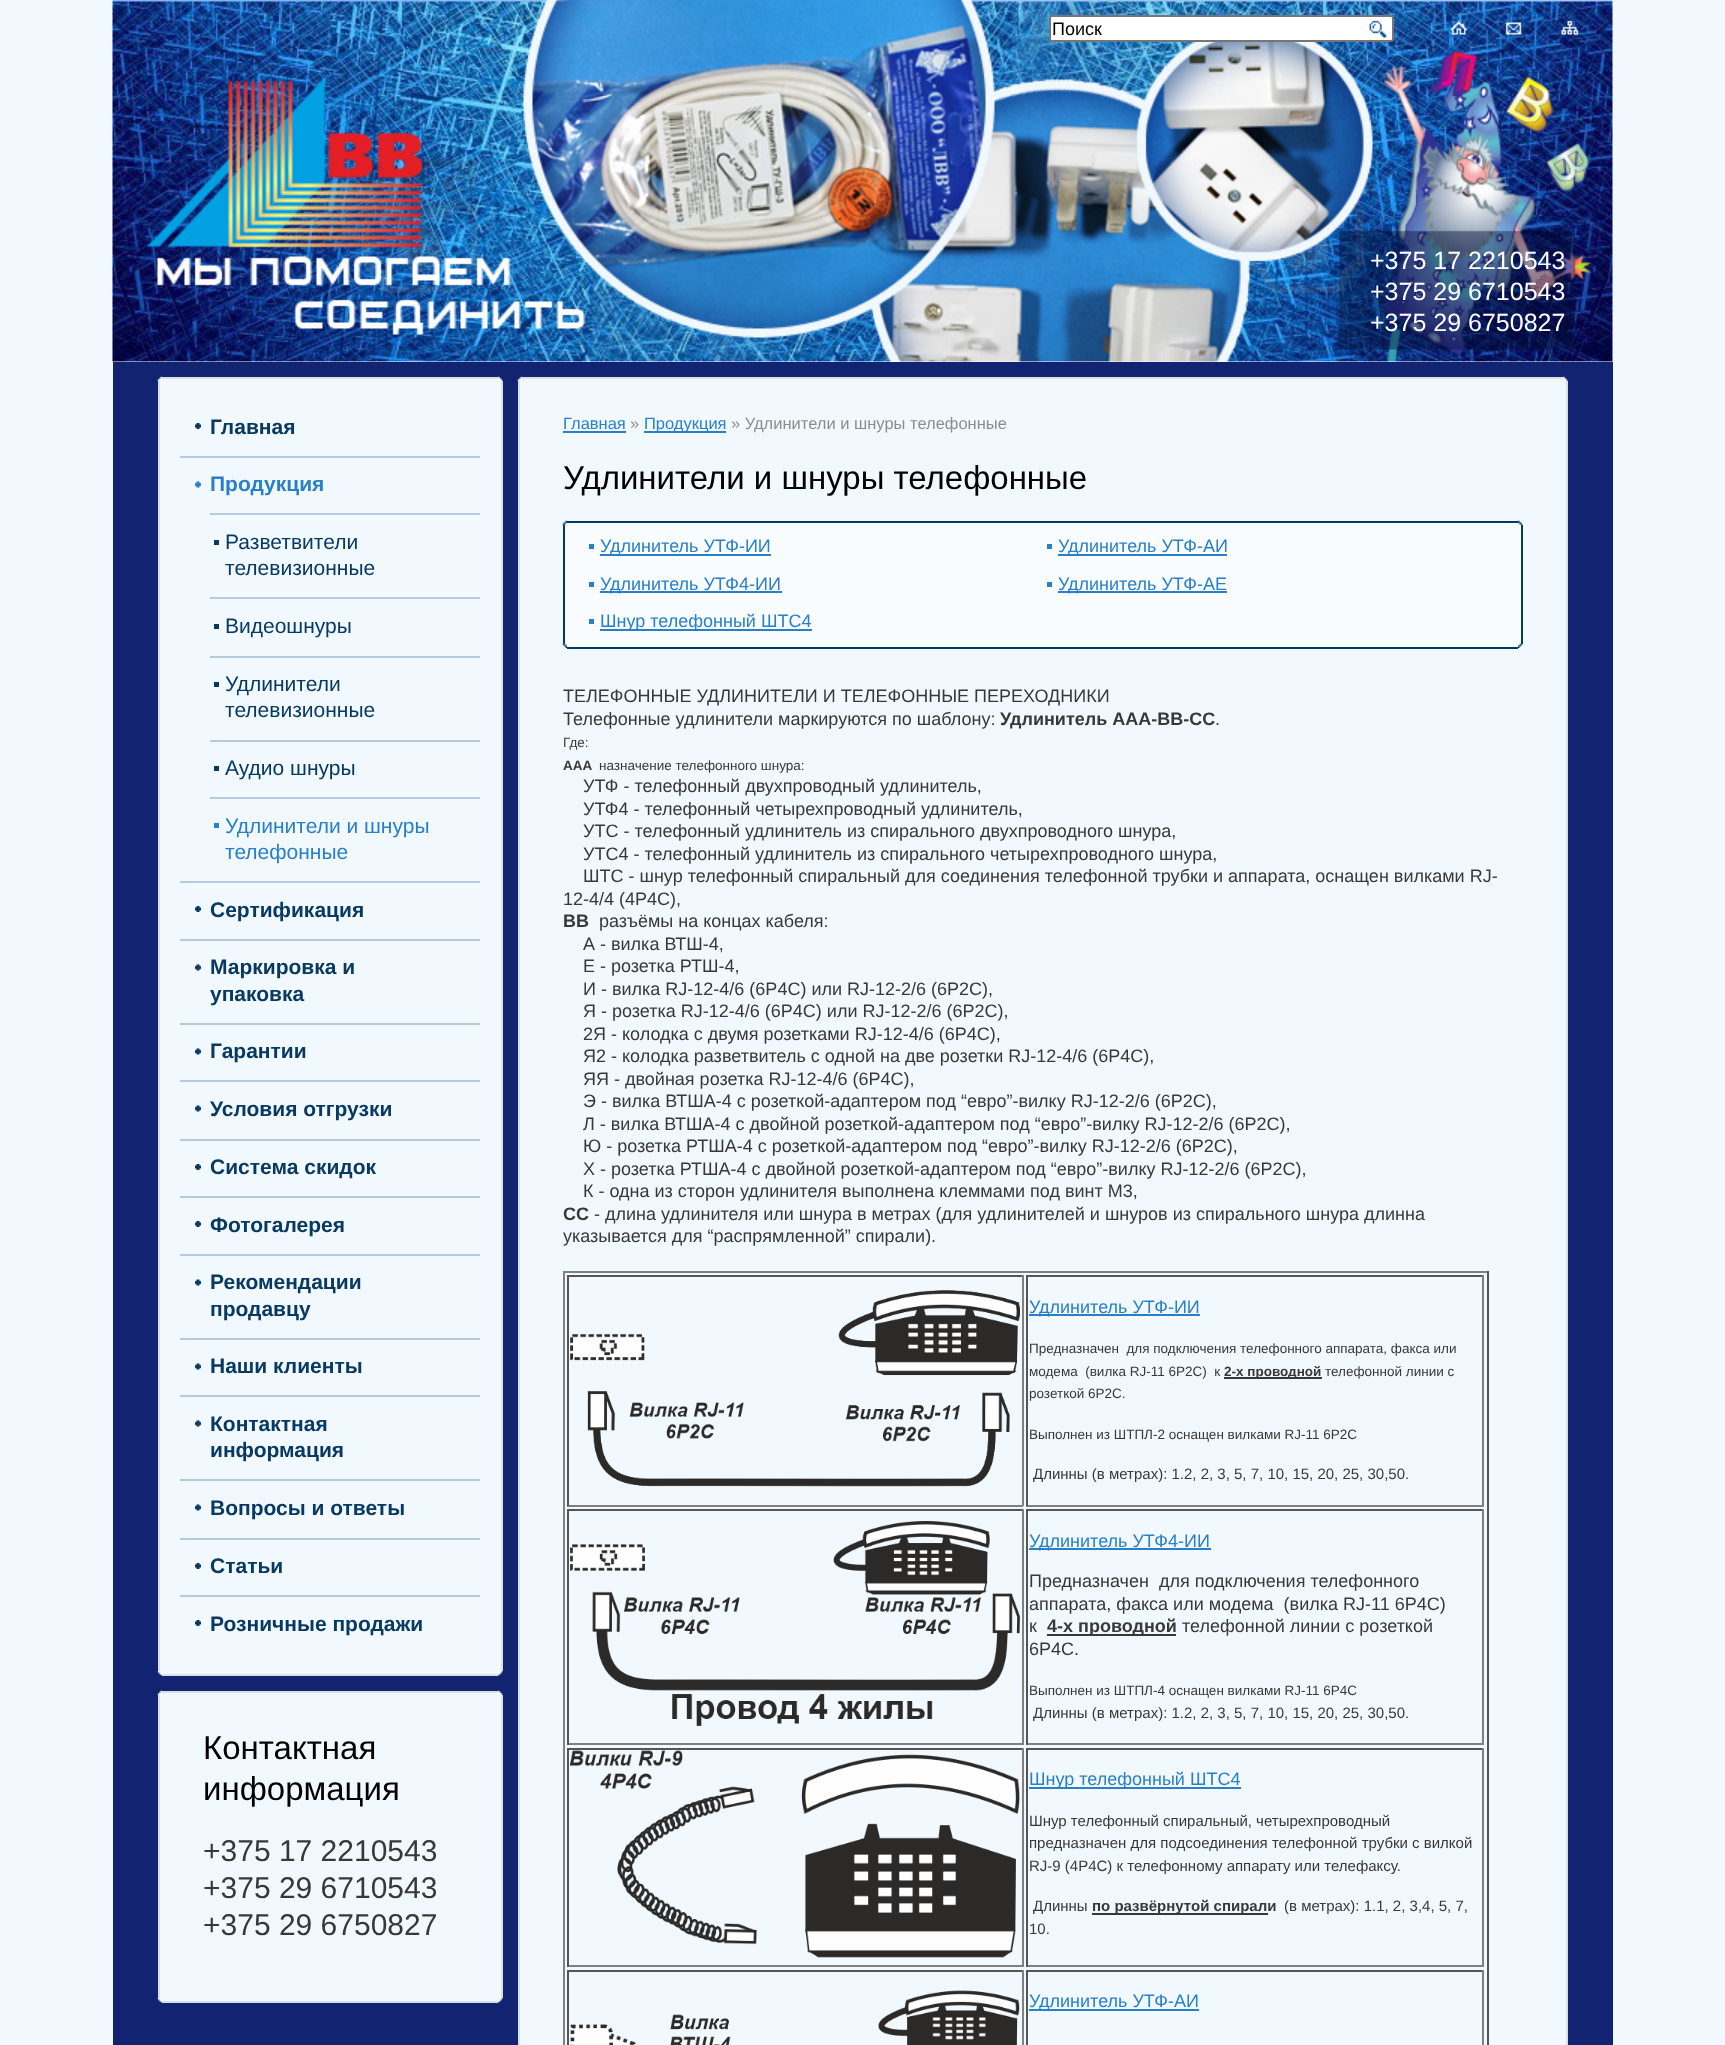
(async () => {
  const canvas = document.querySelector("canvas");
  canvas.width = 1725;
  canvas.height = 2045;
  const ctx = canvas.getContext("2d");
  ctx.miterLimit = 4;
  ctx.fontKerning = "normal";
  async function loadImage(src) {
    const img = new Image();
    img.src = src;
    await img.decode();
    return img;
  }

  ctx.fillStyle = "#f1f9ff";
  ctx.fillRect(0, 0, 1725, 2045);
  ctx.fillStyle = "#ffffff";
  ctx.fillRect(113, 0, 1500, 362);
  ctx.drawImage(await loadImage("img/1.png"), 112, 0, 1501, 362);
  ctx.beginPath();
  ctx.roundRect(1050, 16, 343, 25, 2);
  ctx.fill();
  ctx.strokeStyle = "#767676";
  ctx.lineWidth = 2;
  ctx.stroke();
  ctx.drawImage(await loadImage("img/2.png"), 1369, 20, 18, 18);
  ctx.drawImage(await loadImage("img/3.png"), 1450, 20, 18, 15);
  ctx.drawImage(await loadImage("img/4.png"), 1505, 22, 17, 13);
  ctx.drawImage(await loadImage("img/5.png"), 1561, 20, 18, 15);
  ctx.drawImage(await loadImage("img/6.png"), 147, 77, 276, 171);
  ctx.fillStyle = "#122371";
  ctx.fillRect(113, 362, 1500, 1683);
  ctx.drawImage(await loadImage("img/7.png"), 157, 376, 5, 5);
  ctx.fillStyle = "#f1f9ff";
  ctx.fillRect(162, 379, 336, 2);
  ctx.fillStyle = "#d8dfe5";
  ctx.fillRect(162, 377, 336, 2);
  ctx.drawImage(await loadImage("img/8.png"), 498, 376, 5, 5);
  for (const [x, y, w, h, color] of [
    [160, 381, 2, 1290, "#f1f9ff"],
    [158, 381, 2, 1290, "#d8dfe5"],
    [162, 381, 336, 1293, "#f1f9ff"],
    [162, 1674, 336, 2, "#d8dfe5"],
    [498, 381, 3, 1290, "#f1f9ff"],
    [501, 381, 2, 1290, "#d8dfe5"],
  ]) {
    ctx.fillStyle = color;
    ctx.fillRect(x, y, w, h);
  }
  ctx.drawImage(await loadImage("img/9.png"), 195, 423, 6, 6);
  ctx.fillStyle = "#b4cbde";
  ctx.fillRect(180, 456, 300, 2);
  ctx.drawImage(await loadImage("img/10.png"), 195, 481, 6, 7);
  for (const [x, y, w, h, color] of [
    [210, 513, 270, 2, "#b4cbde"],
    [214, 540, 5, 5, "#073962"],
    [210, 597, 270, 2, "#b4cbde"],
    [214, 624, 5, 5, "#073962"],
    [210, 656, 270, 2, "#b4cbde"],
    [214, 682, 5, 5, "#073962"],
    [210, 740, 270, 2, "#b4cbde"],
    [214, 766, 5, 5, "#073962"],
    [210, 797, 270, 2, "#b4cbde"],
    [214, 823, 5, 5, "#287fca"],
    [180, 881, 300, 2, "#b4cbde"],
  ]) {
    ctx.fillStyle = color;
    ctx.fillRect(x, y, w, h);
  }
  ctx.drawImage(await loadImage("img/9.png"), 195, 906, 6, 6);
  ctx.fillRect(180, 939, 300, 2);
  ctx.drawImage(await loadImage("img/11.png"), 195, 964, 6, 7);
  ctx.fillRect(180, 1023, 300, 2);
  ctx.drawImage(await loadImage("img/11.png"), 195, 1048, 6, 7);
  ctx.fillRect(180, 1080, 300, 2);
  ctx.drawImage(await loadImage("img/11.png"), 195, 1105, 6, 7);
  ctx.fillRect(180, 1139, 300, 2);
  ctx.drawImage(await loadImage("img/9.png"), 195, 1164, 6, 6);
  ctx.fillRect(180, 1196, 300, 2);
  ctx.drawImage(await loadImage("img/9.png"), 195, 1221, 6, 6);
  ctx.fillRect(180, 1254, 300, 2);
  ctx.drawImage(await loadImage("img/11.png"), 195, 1279, 6, 7);
  ctx.fillRect(180, 1338, 300, 2);
  ctx.drawImage(await loadImage("img/11.png"), 195, 1363, 6, 7);
  ctx.fillRect(180, 1395, 300, 2);
  ctx.drawImage(await loadImage("img/11.png"), 195, 1420, 6, 7);
  ctx.fillRect(180, 1479, 300, 2);
  ctx.drawImage(await loadImage("img/11.png"), 195, 1504, 6, 7);
  ctx.fillRect(180, 1538, 300, 2);
  ctx.drawImage(await loadImage("img/9.png"), 195, 1563, 6, 6);
  ctx.fillRect(180, 1595, 300, 2);
  ctx.drawImage(await loadImage("img/9.png"), 195, 1620, 6, 6);
  ctx.drawImage(await loadImage("img/12.png"), 157, 1671, 5, 5);
  ctx.drawImage(await loadImage("img/13.png"), 498, 1671, 5, 5);
  ctx.drawImage(await loadImage("img/7.png"), 157, 1690, 5, 5);
  ctx.fillStyle = "#f1f9ff";
  ctx.fillRect(162, 1693, 336, 2);
  ctx.fillStyle = "#d8dfe5";
  ctx.fillRect(162, 1691, 336, 2);
  ctx.drawImage(await loadImage("img/8.png"), 498, 1690, 5, 5);
  for (const [x, y, w, h, color] of [
    [160, 1695, 2, 303, "#f1f9ff"],
    [158, 1695, 2, 303, "#d8dfe5"],
    [162, 1695, 336, 306, "#f1f9ff"],
    [162, 2001, 336, 2, "#d8dfe5"],
    [498, 1695, 3, 303, "#f1f9ff"],
    [501, 1695, 2, 303, "#d8dfe5"],
  ]) {
    ctx.fillStyle = color;
    ctx.fillRect(x, y, w, h);
  }
  ctx.drawImage(await loadImage("img/12.png"), 157, 1998, 5, 5);
  ctx.drawImage(await loadImage("img/13.png"), 498, 1998, 5, 5);
  ctx.drawImage(await loadImage("img/14.png"), 517, 376, 5, 5);
  ctx.fillStyle = "#f1f9ff";
  ctx.fillRect(522, 379, 1041, 2);
  ctx.fillStyle = "#d8dfe5";
  ctx.fillRect(522, 377, 1041, 2);
  ctx.drawImage(await loadImage("img/15.png"), 1563, 376, 5, 5);
  for (const [x, y, w, h, color] of [
    [520, 381, 2, 1664, "#f1f9ff"],
    [518, 381, 2, 1664, "#d8dfe5"],
    [522, 381, 1044, 1664, "#f1f9ff"],
    [1566, 381, 2, 1664, "#d8dfe5"],
    [563, 431, 63, 2, "#287fca"],
    [644, 431, 82, 2, "#287fca"],
  ]) {
    ctx.fillStyle = color;
    ctx.fillRect(x, y, w, h);
  }
  ctx.drawImage(await loadImage("img/16.png"), 562, 520, 5, 5);
  ctx.fillStyle = "#f9fcff";
  ctx.fillRect(567, 523, 951, 2);
  ctx.fillStyle = "#073962";
  ctx.fillRect(567, 521, 951, 2);
  ctx.drawImage(await loadImage("img/17.png"), 1518, 520, 5, 5);
  for (const [x, y, w, h, color] of [
    [565, 525, 2, 119, "#f9fcff"],
    [563, 525, 2, 119, "#073962"],
    [567, 525, 951, 122, "#f9fcff"],
    [567, 647, 951, 2, "#073962"],
    [1518, 525, 3, 119, "#f9fcff"],
    [1521, 525, 2, 119, "#073962"],
    [589, 544, 5, 5, "#287fca"],
    [600, 554, 171, 2, "#287fca"],
    [589, 582, 5, 5, "#287fca"],
    [600, 591, 182, 2, "#287fca"],
    [589, 619, 5, 5, "#287fca"],
    [600, 629, 212, 2, "#287fca"],
    [1047, 544, 5, 5, "#287fca"],
    [1058, 554, 169, 2, "#287fca"],
    [1047, 582, 5, 5, "#287fca"],
    [1058, 591, 169, 2, "#287fca"],
  ]) {
    ctx.fillStyle = color;
    ctx.fillRect(x, y, w, h);
  }
  ctx.drawImage(await loadImage("img/18.png"), 562, 643, 5, 5);
  ctx.drawImage(await loadImage("img/19.png"), 1518, 643, 5, 5);
  for (const [x, y, w, h, color] of [
    [563, 1271, 925, 2, "#808080"],
    [1487, 1271, 2, 774, "#555555"],
    [563, 1271, 2, 774, "#808080"],
    [567, 1275, 456, 2, "#555555"],
    [1022, 1275, 2, 231, "#808080"],
    [567, 1505, 456, 2, "#808080"],
    [567, 1275, 2, 231, "#555555"],
  ]) {
    ctx.fillStyle = color;
    ctx.fillRect(x, y, w, h);
  }
  ctx.drawImage(await loadImage("img/20.png"), 570, 1290, 450, 197);
  for (const [x, y, w, h, color] of [
    [1026, 1275, 458, 2, "#555555"],
    [1482, 1275, 2, 231, "#808080"],
    [1026, 1505, 458, 2, "#808080"],
    [1026, 1275, 2, 231, "#555555"],
    [1029, 1314, 171, 2, "#287fca"],
    [1224, 1377, 98, 2, "#383838"],
    [567, 1509, 456, 2, "#555555"],
    [1022, 1509, 2, 236, "#808080"],
    [567, 1743, 456, 2, "#808080"],
    [567, 1509, 2, 236, "#555555"],
  ]) {
    ctx.fillStyle = color;
    ctx.fillRect(x, y, w, h);
  }
  ctx.drawImage(await loadImage("img/21.png"), 570, 1521, 450, 205);
  for (const [x, y, w, h, color] of [
    [1026, 1509, 458, 2, "#555555"],
    [1482, 1509, 2, 236, "#808080"],
    [1026, 1743, 458, 2, "#808080"],
    [1026, 1509, 2, 236, "#555555"],
    [1029, 1548, 182, 2, "#287fca"],
    [1047, 1634, 129, 2, "#383838"],
    [567, 1748, 456, 2, "#555555"],
    [1022, 1748, 2, 219, "#808080"],
    [567, 1965, 456, 2, "#808080"],
    [567, 1748, 2, 219, "#555555"],
  ]) {
    ctx.fillStyle = color;
    ctx.fillRect(x, y, w, h);
  }
  ctx.drawImage(await loadImage("img/22.png"), 570, 1750, 450, 208);
  for (const [x, y, w, h, color] of [
    [1026, 1748, 458, 2, "#555555"],
    [1482, 1748, 2, 219, "#808080"],
    [1026, 1965, 458, 2, "#808080"],
    [1026, 1748, 2, 219, "#555555"],
    [1029, 1787, 212, 2, "#287fca"],
    [1092, 1913, 176, 2, "#383838"],
    [567, 1970, 456, 2, "#555555"],
    [1022, 1970, 2, 75, "#808080"],
    [567, 1970, 2, 75, "#555555"],
  ]) {
    ctx.fillStyle = color;
    ctx.fillRect(x, y, w, h);
  }
  ctx.drawImage(await loadImage("img/23.png"), 570, 1990, 450, 55);
  for (const [x, y, w, h, color] of [
    [1026, 1970, 458, 2, "#555555"],
    [1482, 1970, 2, 75, "#808080"],
    [1026, 1970, 2, 75, "#555555"],
    [1029, 2009, 170, 2, "#287fca"],
  ]) {
    ctx.fillStyle = color;
    ctx.fillRect(x, y, w, h);
  }
  ctx.font = "18px Liberation Sans";
  ctx.fillStyle = "#000000";
  ctx.fillText("Поиск", 1052, 35);
  ctx.font = "25px Liberation Sans";
  ctx.fillStyle = "#ffffff";
  for (const [text, x, y] of [
    ["+375 17 2210543", 1370, 269],
    ["+375 29 6710543", 1370, 300],
    ["+375 29 6750827", 1370, 331],
  ]) {
    ctx.fillText(text, x, y);
  }
  ctx.font = "bold 21px Liberation Sans";
  ctx.fillStyle = "#073962";
  ctx.fillText("Главная", 210, 434);
  ctx.fillStyle = "#287fca";
  ctx.fillText("Продукция", 210, 491);
  ctx.font = "21px Liberation Sans";
  ctx.fillStyle = "#073962";
  for (const [text, x, y] of [
    ["Разветвители", 225, 549],
    ["телевизионные", 225, 575],
    ["Видеошнуры", 225, 633],
    ["Удлинители", 225, 691],
    ["телевизионные", 225, 717],
    ["Аудио шнуры", 225, 775],
  ]) {
    ctx.fillText(text, x, y);
  }
  ctx.fillStyle = "#287fca";
  ctx.fillText("Удлинители и шнуры", 225, 833);
  ctx.fillText("телефонные", 225, 859);
  ctx.font = "bold 21px Liberation Sans";
  ctx.fillStyle = "#073962";
  for (const [text, x, y] of [
    ["Сертификация", 210, 917],
    ["Маркировка и", 210, 974],
    ["упаковка", 210, 1001],
    ["Гарантии", 210, 1058],
    ["Условия отгрузки", 210, 1116],
    ["Система скидок", 210, 1174],
    ["Фотогалерея", 210, 1232],
    ["Рекомендации", 210, 1289],
    ["продавцу", 210, 1316],
    ["Наши клиенты", 210, 1373],
    ["Контактная", 210, 1431],
    ["информация", 210, 1457],
    ["Вопросы и ответы", 210, 1515],
    ["Статьи", 210, 1573],
    ["Розничные продажи", 210, 1631],
  ]) {
    ctx.fillText(text, x, y);
  }
  ctx.font = "33px Liberation Sans";
  ctx.fillStyle = "#000000";
  ctx.fillText("Контактная", 203, 1759);
  ctx.fillText("информация", 203, 1800);
  ctx.font = "30px Liberation Sans";
  ctx.fillStyle = "#383838";
  for (const [text, x, y] of [
    ["+375 17 2210543", 203, 1861],
    ["+375 29 6710543", 203, 1898],
    ["+375 29 6750827", 203, 1935],
  ]) {
    ctx.fillText(text, x, y);
  }
  ctx.font = "16.5px Liberation Sans";
  ctx.fillStyle = "#287fca";
  ctx.fillText("Главная", 563, 429);
  ctx.fillStyle = "#8c8c8c";
  ctx.fillText("»", 630, 429);
  ctx.fillStyle = "#287fca";
  ctx.fillText("Продукция", 644, 429);
  ctx.fillStyle = "#8c8c8c";
  ctx.fillText("» Удлинители и шнуры телефонные", 731, 429);
  ctx.font = "33px Liberation Sans";
  ctx.fillStyle = "#000000";
  ctx.fillText("Удлинители и шнуры телефонные", 563, 489);
  ctx.font = "18px Liberation Sans";
  ctx.fillStyle = "#287fca";
  for (const [text, x, y] of [
    ["Удлинитель УТФ-ИИ", 600, 552],
    ["Удлинитель УТФ4-ИИ", 600, 590],
    ["Шнур телефонный ШТС4", 600, 627],
    ["Удлинитель УТФ-АИ", 1058, 552],
    ["Удлинитель УТФ-АЕ", 1058, 590],
  ]) {
    ctx.fillText(text, x, y);
  }
  ctx.fillStyle = "#383838";
  ctx.fillText("ТЕЛЕФОННЫЕ УДЛИНИТЕЛИ И ТЕЛЕФОННЫЕ ПЕРЕХОДНИКИ", 563, 702);
  ctx.fillText("Телефонные удлинители маркируются по шаблону:", 563, 725);
  ctx.font = "bold 18px Liberation Sans";
  ctx.fillText("Удлинитель ААА-BB-CC", 1000, 725);
  ctx.font = "18px Liberation Sans";
  ctx.fillText(".", 1215, 725);
  ctx.font = "13.5px Liberation Sans";
  ctx.fillText("Где:", 563, 747);
  ctx.font = "bold 13.5px Liberation Sans";
  ctx.fillText("ААА", 563, 770);
  ctx.font = "13.5px Liberation Sans";
  ctx.fillText("назначение телефонного шнура:", 599, 770);
  ctx.font = "18px Liberation Sans";
  for (const [text, x, y] of [
    ["УТФ - телефонный двухпроводный удлинитель,", 583, 792],
    ["УТФ4 - телефонный четырехпроводный удлинитель,", 583, 815],
    ["УТС - телефонный удлинитель из спирального двухпроводного шнура,", 583, 837],
    ["УТС4 - телефонный удлинитель из спирального четырехпроводного шнура,", 583, 860],
    ["ШТС - шнур телефонный спиральный для соединения телефонной трубки и аппарата, оснащен вилками RJ-", 583, 882],
    ["12-4/4 (4P4C),", 563, 905],
  ]) {
    ctx.fillText(text, x, y);
  }
  ctx.font = "bold 18px Liberation Sans";
  ctx.fillText("BB", 563, 927);
  ctx.font = "18px Liberation Sans";
  for (const [text, x, y] of [
    ["разъёмы на концах кабеля:", 599, 927],
    ["А - вилка ВТШ-4,", 583, 950],
    ["Е - розетка РТШ-4,", 583, 972],
    ["И - вилка RJ-12-4/6 (6P4C) или RJ-12-2/6 (6P2C),", 583, 995],
    ["Я - розетка RJ-12-4/6 (6P4C) или RJ-12-2/6 (6P2C),", 583, 1017],
    ["2Я - колодка с двумя розетками RJ-12-4/6 (6P4C),", 583, 1040],
    ["Я2 - колодка разветвитель с одной на две розетки RJ-12-4/6 (6P4C),", 583, 1062],
    ["ЯЯ - двойная розетка RJ-12-4/6 (6P4C),", 583, 1085],
    ["Э - вилка ВТША-4 с розеткой-адаптером под “евро”-вилку RJ-12-2/6 (6P2C),", 583, 1107],
    ["Л - вилка ВТША-4 с двойной розеткой-адаптером под “евро”-вилку RJ-12-2/6 (6P2C),", 583, 1130],
    ["Ю - розетка РТША-4 с розеткой-адаптером под “евро”-вилку RJ-12-2/6 (6P2C),", 583, 1152],
    ["Х - розетка РТША-4 с двойной розеткой-адаптером под “евро”-вилку RJ-12-2/6 (6P2C),", 583, 1175],
    ["К - одна из сторон удлинителя выполнена клеммами под винт М3,", 583, 1197],
  ]) {
    ctx.fillText(text, x, y);
  }
  ctx.font = "bold 18px Liberation Sans";
  ctx.fillText("СС", 563, 1220);
  ctx.font = "18px Liberation Sans";
  ctx.fillText("- длина удлинителя или шнура в метрах (для удлинителей и шнуров из спирального шнура длинна", 594, 1220);
  ctx.fillText("указывается для “распрямленной” спирали).", 563, 1242);
  ctx.fillStyle = "#287fca";
  ctx.fillText("Удлинитель УТФ-ИИ", 1029, 1313);
  ctx.font = "13.5px Liberation Sans";
  ctx.fillStyle = "#383838";
  ctx.fillText("Предназначен  для подключения телефонного аппарата, факса или", 1029, 1353);
  ctx.fillText("модема  (вилка RJ-11 6P2C)  к", 1029, 1376);
  ctx.font = "bold 13.5px Liberation Sans";
  ctx.fillText("2-x проводной", 1224, 1376);
  ctx.font = "13.5px Liberation Sans";
  for (const [text, x, y] of [
    ["телефонной линии с", 1325, 1376],
    ["розеткой 6P2C.", 1029, 1398],
    ["Выполнен из ШТПЛ-2 оснащен вилками RJ-11 6P2C", 1029, 1439],
  ]) {
    ctx.fillText(text, x, y);
  }
  ctx.font = "15px Liberation Sans";
  ctx.fillText("Длинны (в метрах): 1.2, 2, 3, 5, 7, 10, 15, 20, 25, 30,50.", 1033, 1479);
  ctx.font = "18px Liberation Sans";
  ctx.fillStyle = "#287fca";
  ctx.fillText("Удлинитель УТФ4-ИИ", 1029, 1547);
  ctx.fillStyle = "#383838";
  for (const [text, x, y] of [
    ["Предназначен  для подключения телефонного", 1029, 1587],
    ["аппарата, факса или модема  (вилка RJ-11 6P4C)", 1029, 1610],
    ["к", 1029, 1632],
  ]) {
    ctx.fillText(text, x, y);
  }
  ctx.font = "bold 18px Liberation Sans";
  ctx.fillText("4-x проводной", 1047, 1632);
  ctx.font = "18px Liberation Sans";
  ctx.fillText("телефонной линии с розеткой", 1182, 1632);
  ctx.fillText("6P4C.", 1029, 1655);
  ctx.font = "13.5px Liberation Sans";
  ctx.fillText("Выполнен из ШТПЛ-4 оснащен вилками RJ-11 6P4C", 1029, 1695);
  ctx.font = "15px Liberation Sans";
  ctx.fillText("Длинны (в метрах): 1.2, 2, 3, 5, 7, 10, 15, 20, 25, 30,50.", 1033, 1718);
  ctx.font = "18px Liberation Sans";
  ctx.fillStyle = "#287fca";
  ctx.fillText("Шнур телефонный ШТС4", 1029, 1785);
  ctx.font = "15px Liberation Sans";
  ctx.fillStyle = "#383838";
  for (const [text, x, y] of [
    ["Шнур телефонный спиральный, четырехпроводный", 1029, 1826],
    ["предназначен для подсоединения телефонной трубки с вилкой", 1029, 1848],
    ["RJ-9 (4P4C) к телефонному аппарату или телефаксу.", 1029, 1871],
    ["Длинны", 1033, 1911],
  ]) {
    ctx.fillText(text, x, y);
  }
  ctx.font = "bold 15px Liberation Sans";
  ctx.fillText("по развёрнутой спирали", 1092, 1911);
  ctx.font = "15px Liberation Sans";
  ctx.fillText("(в метрах): 1.1, 2, 3,4, 5, 7,", 1284, 1911);
  ctx.fillText("10.", 1029, 1934);
  ctx.font = "18px Liberation Sans";
  ctx.fillStyle = "#287fca";
  ctx.fillText("Удлинитель УТФ-АИ", 1029, 2007);
})();
